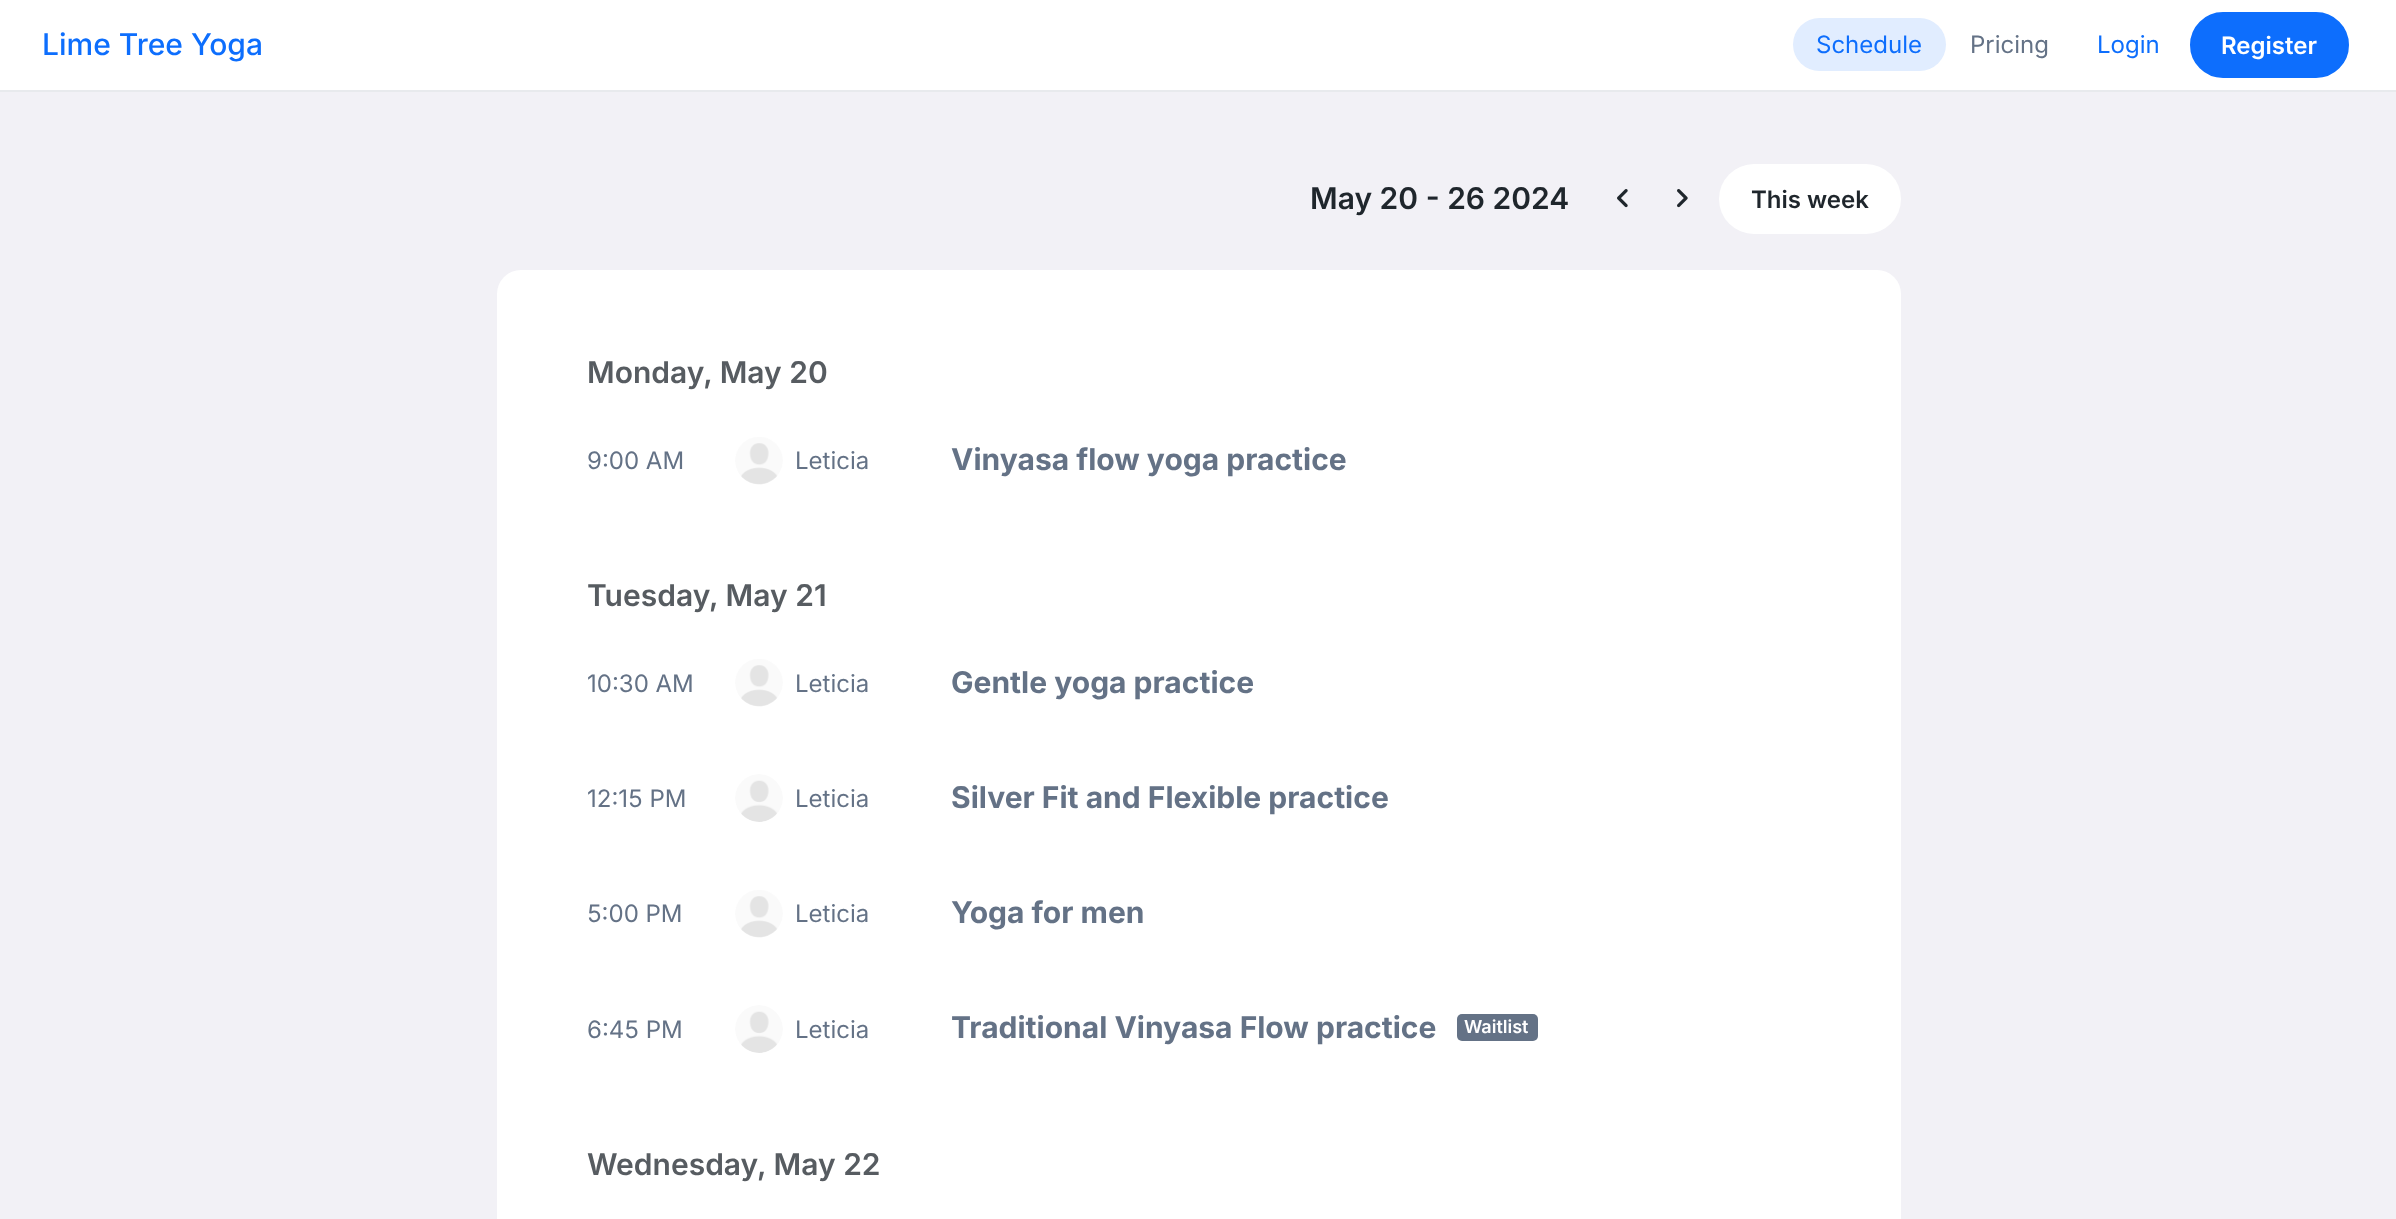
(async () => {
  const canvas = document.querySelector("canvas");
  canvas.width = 2396;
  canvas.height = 1219;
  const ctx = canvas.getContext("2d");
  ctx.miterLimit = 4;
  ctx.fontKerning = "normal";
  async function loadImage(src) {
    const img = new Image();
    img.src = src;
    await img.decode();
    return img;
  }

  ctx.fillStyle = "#f2f1f6";
  ctx.fillRect(0, 0, 2396, 1219);
  ctx.fillStyle = "#ffffff";
  ctx.fillRect(0, 0, 2396, 90);
  ctx.fillStyle = "#e8eaed";
  ctx.fillRect(0, 90, 2396, 2);
  ctx.fillStyle = "#e1edff";
  ctx.beginPath();
  ctx.roundRect(1793, 18, 153, 53, 26.5);
  ctx.fill();
  ctx.fillStyle = "#0d6efd";
  ctx.beginPath();
  ctx.roundRect(2191.5, 13.5, 156, 63, 31.5);
  ctx.fill();
  ctx.strokeStyle = "#0d6efd";
  ctx.lineWidth = 3;
  ctx.stroke();
  ctx.drawImage(await loadImage("img/1.png"), 1617, 189, 11, 19);
  ctx.drawImage(await loadImage("img/2.png"), 1677, 189, 11, 19);
  ctx.fillStyle = "#ffffff";
  ctx.beginPath();
  ctx.roundRect(1719, 164, 182, 70, 35);
  ctx.fill();
  ctx.beginPath();
  ctx.roundRect(497, 270, 1404, 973, 24);
  ctx.fill();
  ctx.drawImage(await loadImage("img/3.png"), 735, 437, 48, 48);
  ctx.drawImage(await loadImage("img/3.png"), 735, 659, 48, 48);
  ctx.drawImage(await loadImage("img/4.png"), 735, 774, 48, 48);
  ctx.drawImage(await loadImage("img/3.png"), 735, 890, 48, 48);
  ctx.drawImage(await loadImage("img/5.png"), 735, 1005, 48, 48);
  ctx.fillStyle = "#647286";
  ctx.beginPath();
  ctx.roundRect(1457, 1014, 81, 27, 5);
  ctx.fill();
  ctx.font = "500 30px Inter";
  ctx.fillStyle = "#0d6efd";
  ctx.fillText("Lime Tree Yoga", 42, 55);
  ctx.font = "24px Inter";
  ctx.fillText("Schedule", 1816, 53);
  ctx.fillStyle = "#647286";
  ctx.fillText("Pricing", 1970, 53);
  ctx.fillStyle = "#0d6efd";
  ctx.fillText("Login", 2097, 53);
  ctx.font = "600 24px Inter";
  ctx.fillStyle = "#ffffff";
  ctx.fillText("Register", 2221, 54);
  ctx.font = "600 30px Inter";
  ctx.fillStyle = "#1f262c";
  ctx.fillText("May 20 - 26 2024", 1310, 209);
  ctx.font = "600 24px Inter";
  ctx.fillText("This week", 1751, 208);
  ctx.font = "600 30px Inter";
  ctx.fillStyle = "#575c61";
  ctx.fillText("Monday, May 20", 587, 383);
  ctx.font = "24px Inter";
  ctx.fillStyle = "#647286";
  ctx.fillText("9:00 AM", 587, 469);
  ctx.fillText("Leticia", 795, 469);
  ctx.font = "bold 30px Inter";
  ctx.fillText("Vinyasa flow yoga practice", 951, 470);
  ctx.font = "600 30px Inter";
  ctx.fillStyle = "#575c61";
  ctx.fillText("Tuesday, May 21", 587, 606);
  ctx.font = "24px Inter";
  ctx.fillStyle = "#647286";
  ctx.fillText("10:30 AM", 587, 692);
  ctx.fillText("Leticia", 795, 692);
  ctx.font = "bold 30px Inter";
  ctx.fillText("Gentle yoga practice", 951, 693);
  ctx.font = "24px Inter";
  ctx.fillText("12:15 PM", 587, 807);
  ctx.fillText("Leticia", 795, 807);
  ctx.font = "bold 30px Inter";
  ctx.fillText("Silver Fit and Flexible practice", 951, 808);
  ctx.font = "24px Inter";
  ctx.fillText("5:00 PM", 587, 922);
  ctx.fillText("Leticia", 795, 922);
  ctx.font = "bold 30px Inter";
  ctx.fillText("Yoga for men", 951, 923);
  ctx.font = "24px Inter";
  ctx.fillText("6:45 PM", 587, 1038);
  ctx.fillText("Leticia", 795, 1038);
  ctx.font = "bold 30px Inter";
  ctx.fillText("Traditional Vinyasa Flow practice", 951, 1038);
  ctx.font = "600 18px Inter";
  ctx.fillStyle = "#ffffff";
  ctx.fillText("Waitlist", 1464, 1033);
  ctx.font = "600 30px Inter";
  ctx.fillStyle = "#575c61";
  ctx.fillText("Wednesday, May 22", 587, 1175);
})();
